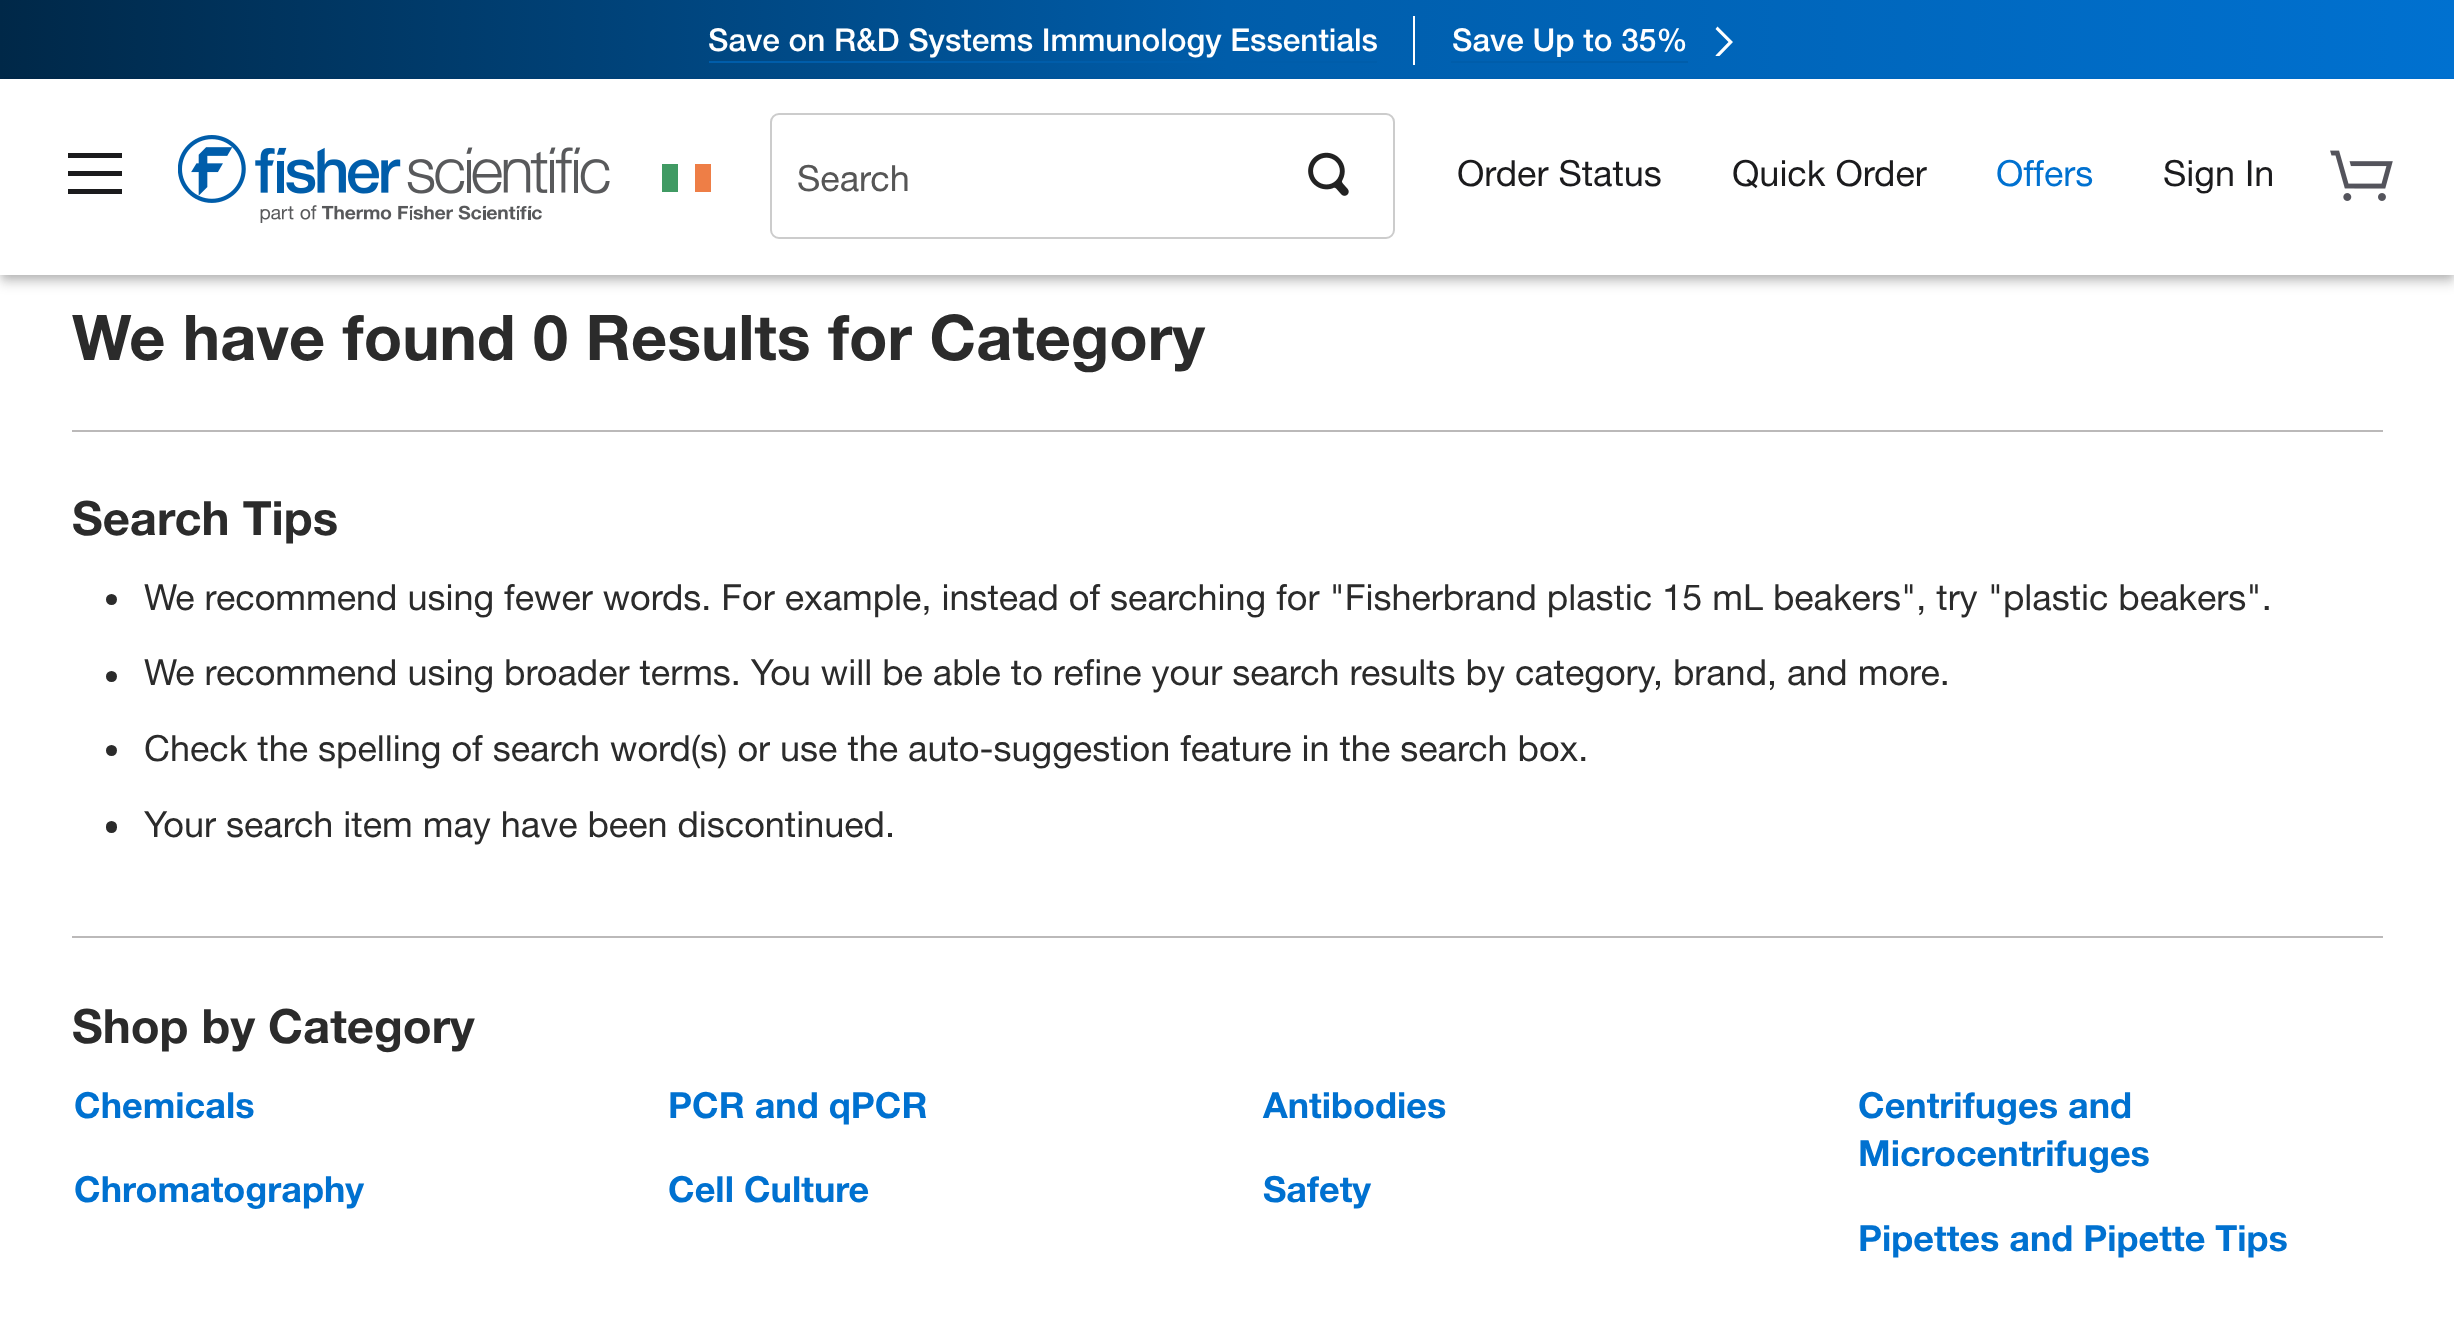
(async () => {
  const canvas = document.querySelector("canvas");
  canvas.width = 2454;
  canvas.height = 1339;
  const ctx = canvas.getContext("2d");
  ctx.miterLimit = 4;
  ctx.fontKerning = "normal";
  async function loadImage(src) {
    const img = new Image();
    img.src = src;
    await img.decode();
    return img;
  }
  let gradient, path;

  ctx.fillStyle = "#ffffff";
  ctx.fillRect(0, 0, 2454, 1339);
  gradient = ctx.createLinearGradient(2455, 40, 0, 39);
  gradient.addColorStop(0, "#0071d0");
  gradient.addColorStop(0.5, "#005daa");
  gradient.addColorStop(1, "#002848");
  ctx.fillStyle = gradient;
  ctx.fillRect(0, 0, 2454, 79);
  for (const [x, y, w, h, color] of [
    [709, 61, 668, 2, "#005daa"],
    [1413, 16, 2, 49, "#ffffff"],
    [1451, 61, 237, 2, "#005daa"],
  ]) {
    ctx.fillStyle = color;
    ctx.fillRect(x, y, w, h);
  }
  ctx.save();
  ctx.beginPath();
  ctx.rect(1706, 16, 40, 40);
  ctx.clip();
  ctx.fillStyle = "#ffffff";
  path = new Path2D("M1715.5 29L1717.5 26.5L1733 42L1717.5 58L1715.5 55.5L1728.5 42Z");
  ctx.fill(path, "evenodd");
  ctx.restore();
  ctx.fillStyle = "rgba(0, 0, 0, 0.14)";
  ctx.filter = "blur(5.5px)";
  ctx.beginPath();
  ctx.rect(0, 88, 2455, 196);
  ctx.fill();
  ctx.filter = "none";
  ctx.fillStyle = "rgba(0, 0, 0, 0.2)";
  ctx.filter = "blur(4.5px)";
  ctx.beginPath();
  ctx.rect(2, 86, 2451, 191);
  ctx.fill();
  ctx.filter = "none";
  for (const [x, y, w, h, color] of [
    [0, 79, 2454, 196, "#ffffff"],
    [68, 171, 54, 5, "#1b1b1d"],
    [68, 153, 54, 5, "#1b1b1d"],
    [68, 189, 54, 5, "#1b1b1d"],
  ]) {
    ctx.fillStyle = color;
    ctx.fillRect(x, y, w, h);
  }
  ctx.drawImage(await loadImage("img/1.png"), 178, 135, 432, 88);
  ctx.fillStyle = "#409a63";
  ctx.fillRect(662, 164, 16, 28);
  ctx.fillStyle = "#ee7e46";
  ctx.fillRect(695, 164, 16, 28);
  ctx.beginPath();
  ctx.roundRect(771, 114, 623, 124, 8);
  ctx.strokeStyle = "#cccccc";
  ctx.lineWidth = 2;
  ctx.stroke();
  ctx.drawImage(await loadImage("img/2.png"), 1308, 152, 41, 44);
  ctx.drawImage(await loadImage("img/3.png"), 2330, 150, 63, 51);
  ctx.fillStyle = "#bbb9b9";
  ctx.fillRect(72, 430, 2311, 2);
  ctx.fillStyle = "#2b2b2b";
  ctx.beginPath();
  ctx.arc(111.5, 599.5, 5.5, 0, Math.PI * 2);
  ctx.fill();
  ctx.beginPath();
  ctx.arc(111.5, 676.5, 5.5, 0, Math.PI * 2);
  ctx.fill();
  ctx.beginPath();
  ctx.arc(111.5, 750.5, 5.5, 0, Math.PI * 2);
  ctx.fill();
  ctx.beginPath();
  ctx.roundRect(106, 821, 11, 12, 5.5);
  ctx.fill();
  ctx.fillStyle = "#bbb9b9";
  ctx.fillRect(72, 936, 2311, 2);
  ctx.font = "500 31.5px Helvetica Neue";
  ctx.fillStyle = "#ffffff";
  ctx.fillText("Save on R&D Systems Immunology Essentials", 708, 51);
  ctx.fillText("Save Up to 35%", 1452, 51);
  ctx.font = "36px Helvetica Neue";
  ctx.fillStyle = "#565656";
  ctx.fillText("Search", 797, 191);
  ctx.fillStyle = "#1b1b1d";
  ctx.fillText("Order Status", 1457, 186);
  ctx.fillText("Quick Order", 1732, 186);
  ctx.fillStyle = "#0071d0";
  ctx.fillText("Offers", 1996, 186);
  ctx.fillStyle = "#1b1b1d";
  ctx.fillText("Sign In", 2163, 186);
  ctx.font = "bold 63px Helvetica Neue";
  ctx.fillStyle = "#2b2b2b";
  ctx.fillText("We have found 0 Results for Category", 72, 360);
  ctx.font = "bold 47.25px Helvetica Neue";
  ctx.fillText("Search Tips", 72, 535);
  ctx.font = "36px Helvetica Neue";
  for (const [text, x, y] of [
    ["We recommend using fewer words. For example, instead of searching for \"Fisherbrand plastic 15 mL beakers\", try \"plastic beakers\".", 144, 610],
    ["We recommend using broader terms. You will be able to refine your search results by category, brand, and more.", 144, 685],
    ["Check the spelling of search word(s) or use the auto-suggestion feature in the search box.", 144, 761],
    ["Your search item may have been discontinued.", 144, 837],
  ]) {
    ctx.fillText(text, x, y);
  }
  ctx.font = "bold 47.25px Helvetica Neue";
  ctx.fillText("Shop by Category", 72, 1043);
  ctx.font = "bold 36px Helvetica Neue";
  ctx.fillStyle = "#0071d0";
  for (const [text, x, y] of [
    ["Chemicals", 74, 1118],
    ["Chromatography", 74, 1202],
    ["PCR and qPCR", 668, 1118],
    ["Cell Culture", 668, 1202],
    ["Antibodies", 1263, 1118],
    ["Safety", 1263, 1202],
    ["Centrifuges and", 1858, 1118],
    ["Microcentrifuges", 1858, 1166],
    ["Pipettes and Pipette Tips", 1858, 1251],
  ]) {
    ctx.fillText(text, x, y);
  }
})();
